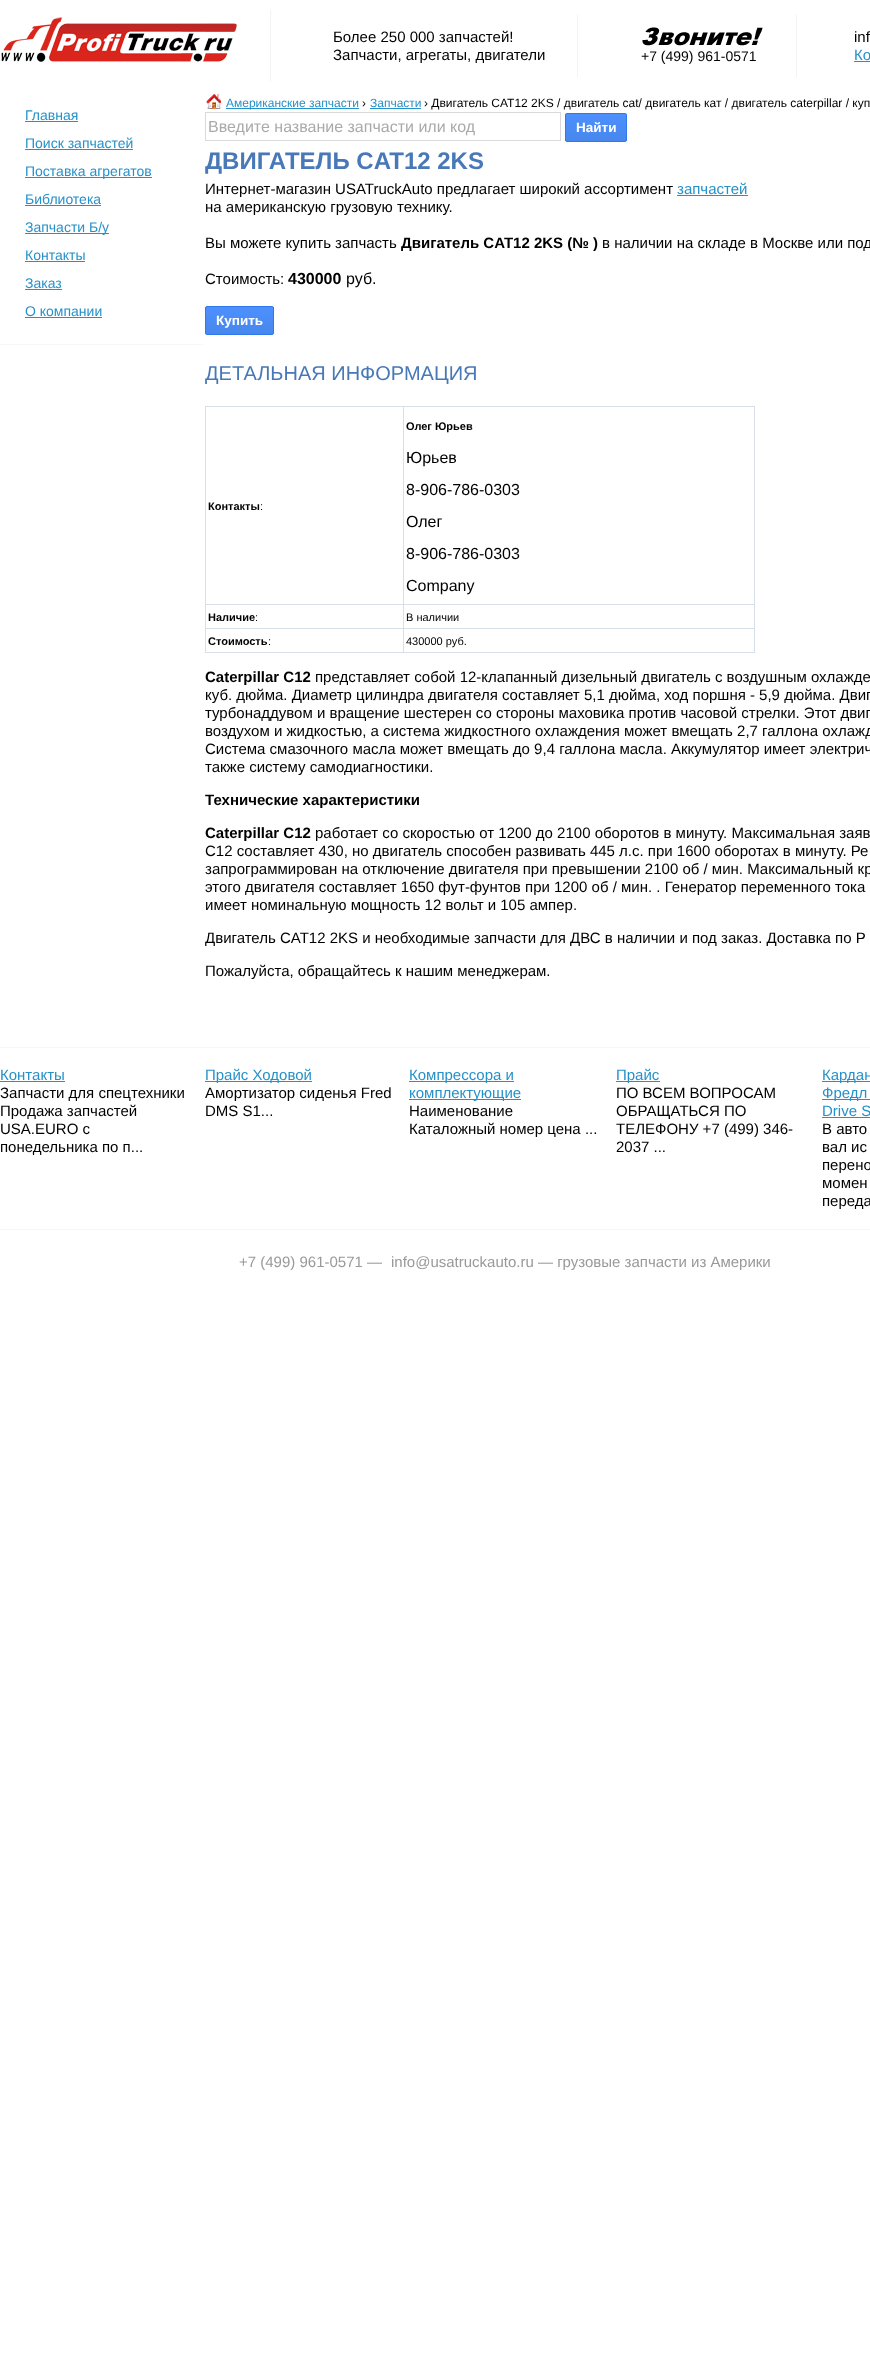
(async () => {
  const canvas = document.querySelector("canvas");
  canvas.width = 870;
  canvas.height = 2358;
  const ctx = canvas.getContext("2d");
  ctx.miterLimit = 4;
  ctx.fontKerning = "normal";
  async function loadImage(src) {
    const img = new Image();
    img.src = src;
    await img.decode();
    return img;
  }
  let gradient;

  ctx.fillStyle = "#ffffff";
  ctx.fillRect(0, 0, 870, 2358);
  ctx.fillStyle = "#f3f3f3";
  ctx.fillRect(270, 10, 1, 71);
  ctx.drawImage(await loadImage("img/1.png"), 1, 17, 236, 45);
  ctx.fillRect(577, 15, 1, 62);
  ctx.fillRect(796, 15, 1, 62);
  ctx.drawImage(await loadImage("img/2.png"), 642, 27, 121, 19);
  for (const [x, y, w, h, color] of [
    [854, 61, 16, 1, "#2691c9"],
    [25, 121, 53, 1, "#2691c9"],
    [25, 149, 108, 1, "#2691c9"],
    [25, 177, 127, 1, "#2691c9"],
    [25, 205, 76, 1, "#2691c9"],
    [25, 233, 84, 1, "#2691c9"],
    [25, 261, 60, 1, "#2691c9"],
    [25, 289, 37, 1, "#2691c9"],
    [25, 317, 77, 1, "#2691c9"],
    [0, 344, 203, 1, "#f6f7fb"],
  ]) {
    ctx.fillStyle = color;
    ctx.fillRect(x, y, w, h);
  }
  ctx.drawImage(await loadImage("img/3.png"), 206, 94, 15, 15);
  ctx.fillStyle = "#2691c9";
  ctx.fillRect(226, 108, 133, 1);
  ctx.fillRect(370, 108, 51, 1);
  ctx.strokeStyle = "#d9d9d9";
  ctx.strokeRect(205.5, 112.5, 355, 28);
  ctx.save();
  ctx.beginPath();
  ctx.roundRect(565, 113, 62, 29, 2);
  ctx.clip();
  gradient = ctx.createLinearGradient(596, 114, 596, 141);
  gradient.addColorStop(0, "#4d90fe");
  gradient.addColorStop(1, "#4787ed");
  ctx.fillStyle = gradient;
  ctx.fillRect(565, 114, 62, 27);
  ctx.restore();
  ctx.beginPath();
  ctx.roundRect(565.5, 113.5, 61, 28, 1.5);
  ctx.strokeStyle = "#3079ed";
  ctx.stroke();
  ctx.fillRect(677, 195, 71, 1);
  ctx.save();
  ctx.beginPath();
  ctx.roundRect(205, 306, 69, 29, 2);
  ctx.clip();
  gradient = ctx.createLinearGradient(240, 307, 240, 334);
  gradient.addColorStop(0, "#4d90fe");
  gradient.addColorStop(1, "#4787ed");
  ctx.fillStyle = gradient;
  ctx.fillRect(205, 307, 69, 27);
  ctx.restore();
  ctx.beginPath();
  ctx.roundRect(205.5, 306.5, 68, 28, 1.5);
  ctx.stroke();
  for (const [x, y, w, h, color] of [
    [205, 406, 550, 247, "#d6e0eb"],
    [206, 407, 197, 197, "#ffffff"],
    [404, 407, 350, 197, "#ffffff"],
    [206, 605, 197, 23, "#ffffff"],
    [404, 605, 350, 23, "#ffffff"],
    [206, 629, 197, 23, "#ffffff"],
    [404, 629, 350, 23, "#ffffff"],
    [0, 1047, 870, 1, "#f6f7fb"],
    [0, 1081, 65, 1, "#2691c9"],
    [205, 1081, 107, 1, "#2691c9"],
    [409, 1081, 105, 1, "#2691c9"],
    [409, 1099, 112, 1, "#2691c9"],
    [616, 1081, 44, 1, "#2691c9"],
    [822, 1081, 48, 1, "#2691c9"],
    [822, 1099, 48, 1, "#2691c9"],
    [822, 1117, 48, 1, "#2691c9"],
    [0, 1229, 870, 1, "#f6f7fb"],
  ]) {
    ctx.fillStyle = color;
    ctx.fillRect(x, y, w, h);
  }
  ctx.font = "15px Liberation Sans";
  ctx.fillStyle = "#000000";
  ctx.fillText("Более 250 000 запчастей!", 333, 42);
  ctx.fillText("Запчасти, агрегаты, двигатели", 333, 60);
  ctx.font = "14px Liberation Sans";
  ctx.fillText("+7 (499) 961-0571", 641, 61);
  ctx.font = "15px Liberation Sans";
  ctx.fillText("inf", 854, 42);
  ctx.fillStyle = "#2691c9";
  ctx.fillText("Ко", 854, 60);
  ctx.font = "14px Liberation Sans";
  for (const [text, x, y] of [
    ["Главная", 25, 120],
    ["Поиск запчастей", 25, 148],
    ["Поставка агрегатов", 25, 176],
    ["Библиотека", 25, 204],
    ["Запчасти Б/у", 25, 232],
    ["Контакты", 25, 260],
    ["Заказ", 25, 288],
    ["О компании", 25, 316],
  ]) {
    ctx.fillText(text, x, y);
  }
  ctx.font = "12px Liberation Sans";
  ctx.fillText("Американские запчасти", 226, 107);
  ctx.fillStyle = "#000000";
  ctx.fillText("›", 362, 107);
  ctx.fillStyle = "#2691c9";
  ctx.fillText("Запчасти", 370, 107);
  ctx.fillStyle = "#000000";
  ctx.fillText("› Двигатель CAT12 2KS / двигатель cat/ двигатель кат / двигатель caterpillar / куп", 424, 107);
  ctx.font = "16px Liberation Sans";
  ctx.fillStyle = "#aaaaaa";
  ctx.fillText("Введите название запчасти или код", 208, 132);
  ctx.font = "bold 13.5px Liberation Sans";
  ctx.fillStyle = "#ffffff";
  ctx.fillText("Найти", 576, 132);
  ctx.font = "bold 24px Liberation Sans";
  ctx.fillStyle = "#4878b7";
  ctx.fillText("ДВИГАТЕЛЬ CAT12 2KS", 205, 169);
  ctx.font = "15px Liberation Sans";
  ctx.fillStyle = "#000000";
  ctx.fillText("Интернет-магазин USATruckAuto предлагает широкий ассортимент", 205, 194);
  ctx.fillStyle = "#2691c9";
  ctx.fillText("запчастей", 677, 194);
  ctx.fillStyle = "#000000";
  ctx.fillText("на американскую грузовую технику.", 205, 212);
  ctx.fillText("Вы можете купить запчасть", 205, 248);
  ctx.font = "bold 15px Liberation Sans";
  ctx.fillText("Двигатель CAT12 2KS (№ )", 401, 248);
  ctx.font = "15px Liberation Sans";
  ctx.fillText("в наличии на складе в Москве или под", 602, 248);
  ctx.fillText("Стоимость:", 205, 284);
  ctx.font = "bold 16px Liberation Sans";
  ctx.fillText("430000", 288, 284);
  ctx.font = "16px Liberation Sans";
  ctx.fillText("руб.", 346, 284);
  ctx.font = "bold 13.5px Liberation Sans";
  ctx.fillStyle = "#ffffff";
  ctx.fillText("Купить", 216, 325);
  ctx.font = "20px Liberation Sans";
  ctx.fillStyle = "#4878b7";
  ctx.fillText("ДЕТАЛЬНАЯ ИНФОРМАЦИЯ", 205, 380);
  ctx.font = "bold 11px Liberation Sans";
  ctx.fillStyle = "#000000";
  ctx.fillText("Контакты", 208, 510);
  ctx.font = "11px Liberation Sans";
  ctx.fillText(":", 260, 510);
  ctx.font = "bold 11px Liberation Sans";
  ctx.fillText("Олег Юрьев", 406, 430);
  ctx.font = "16px Liberation Sans";
  for (const [text, x, y] of [
    ["Юрьев", 406, 463],
    ["8-906-786-0303", 406, 495],
    ["Олег", 406, 527],
    ["8-906-786-0303", 406, 559],
    ["Company", 406, 591],
  ]) {
    ctx.fillText(text, x, y);
  }
  ctx.font = "bold 11px Liberation Sans";
  ctx.fillText("Наличие", 208, 621);
  ctx.font = "11px Liberation Sans";
  ctx.fillText(":", 255, 621);
  ctx.fillText("В наличии", 406, 621);
  ctx.font = "bold 11px Liberation Sans";
  ctx.fillText("Стоимость", 208, 645);
  ctx.font = "11px Liberation Sans";
  ctx.fillText(":", 268, 645);
  ctx.fillText("430000 руб.", 406, 645);
  ctx.font = "bold 15px Liberation Sans";
  ctx.fillText("Caterpillar C12", 205, 682);
  ctx.font = "15px Liberation Sans";
  for (const [text, x, y] of [
    ["представляет собой 12-клапанный дизельный двигатель с воздушным охлажде", 315, 682],
    ["куб. дюйма. Диаметр цилиндра двигателя составляет 5,1 дюйма, ход поршня - 5,9 дюйма. Двиг", 205, 700],
    ["турбонаддувом и вращение шестерен со стороны маховика против часовой стрелки. Этот двиг", 205, 718],
    ["воздухом и жидкостью, а система жидкостного охлаждения может вмещать 2,7 галлона охлажд", 205, 736],
    ["Система смазочного масла может вмещать до 9,4 галлона масла. Аккумулятор имеет электрич", 205, 754],
    ["также систему самодиагностики.", 205, 772],
  ]) {
    ctx.fillText(text, x, y);
  }
  ctx.font = "bold 15px Liberation Sans";
  ctx.fillText("Технические характеристики", 205, 805);
  ctx.fillText("Caterpillar C12", 205, 838);
  ctx.font = "15px Liberation Sans";
  for (const [text, x, y] of [
    ["работает со скоростью от 1200 до 2100 оборотов в минуту. Максимальная заяв", 315, 838],
    ["C12 составляет 430, но двигатель способен развивать 445 л.с. при 1600 оборотах в минуту. Ре", 205, 856],
    ["запрограммирован на отключение двигателя при превышении 2100 об / мин. Максимальный кр", 205, 874],
    ["этого двигателя составляет 1650 фут-фунтов при 1200 об / мин. . Генератор переменного тока", 205, 892],
    ["имеет номинальную мощность 12 вольт и 105 ампер.", 205, 910],
    ["Двигатель CAT12 2KS и необходимые запчасти для ДВС в наличии и под заказ. Доставка по Р", 205, 943],
    ["Пожалуйста, обращайтесь к нашим менеджерам.", 205, 976],
  ]) {
    ctx.fillText(text, x, y);
  }
  ctx.fillStyle = "#2691c9";
  ctx.fillText("Контакты", 0, 1080);
  ctx.fillStyle = "#000000";
  for (const [text, x, y] of [
    ["Запчасти для спецтехники", 0, 1098],
    ["Продажа запчастей", 0, 1116],
    ["USA.EURO с", 0, 1134],
    ["понедельника по п...", 0, 1152],
  ]) {
    ctx.fillText(text, x, y);
  }
  ctx.fillStyle = "#2691c9";
  ctx.fillText("Прайс Ходовой", 205, 1080);
  ctx.fillStyle = "#000000";
  ctx.fillText("Амортизатор сиденья Fred", 205, 1098);
  ctx.fillText("DMS S1...", 205, 1116);
  ctx.fillStyle = "#2691c9";
  ctx.fillText("Компрессора и", 409, 1080);
  ctx.fillText("комплектующие", 409, 1098);
  ctx.fillStyle = "#000000";
  ctx.fillText("Наименование", 409, 1116);
  ctx.fillText("Каталожный номер цена ...", 409, 1134);
  ctx.fillStyle = "#2691c9";
  ctx.fillText("Прайс", 616, 1080);
  ctx.fillStyle = "#000000";
  for (const [text, x, y] of [
    ["ПО ВСЕМ ВОПРОСАМ", 616, 1098],
    ["ОБРАЩАТЬСЯ ПО", 616, 1116],
    ["ТЕЛЕФОНУ +7 (499) 346-", 616, 1134],
    ["2037 ...", 616, 1152],
  ]) {
    ctx.fillText(text, x, y);
  }
  ctx.fillStyle = "#2691c9";
  for (const [text, x, y] of [
    ["Кардан", 822, 1080],
    ["Фредл", 822, 1098],
    ["Drive S", 822, 1116],
  ]) {
    ctx.fillText(text, x, y);
  }
  ctx.fillStyle = "#000000";
  for (const [text, x, y] of [
    ["В авто", 822, 1134],
    ["вал ис", 822, 1152],
    ["перено", 822, 1170],
    ["момен", 822, 1188],
    ["переда", 822, 1206],
  ]) {
    ctx.fillText(text, x, y);
  }
  ctx.fillStyle = "#999999";
  ctx.fillText("+7 (499) 961-0571 —", 239, 1267);
  ctx.fillText("info@usatruckauto.ru — грузовые запчасти из Америки", 391, 1267);
})();
